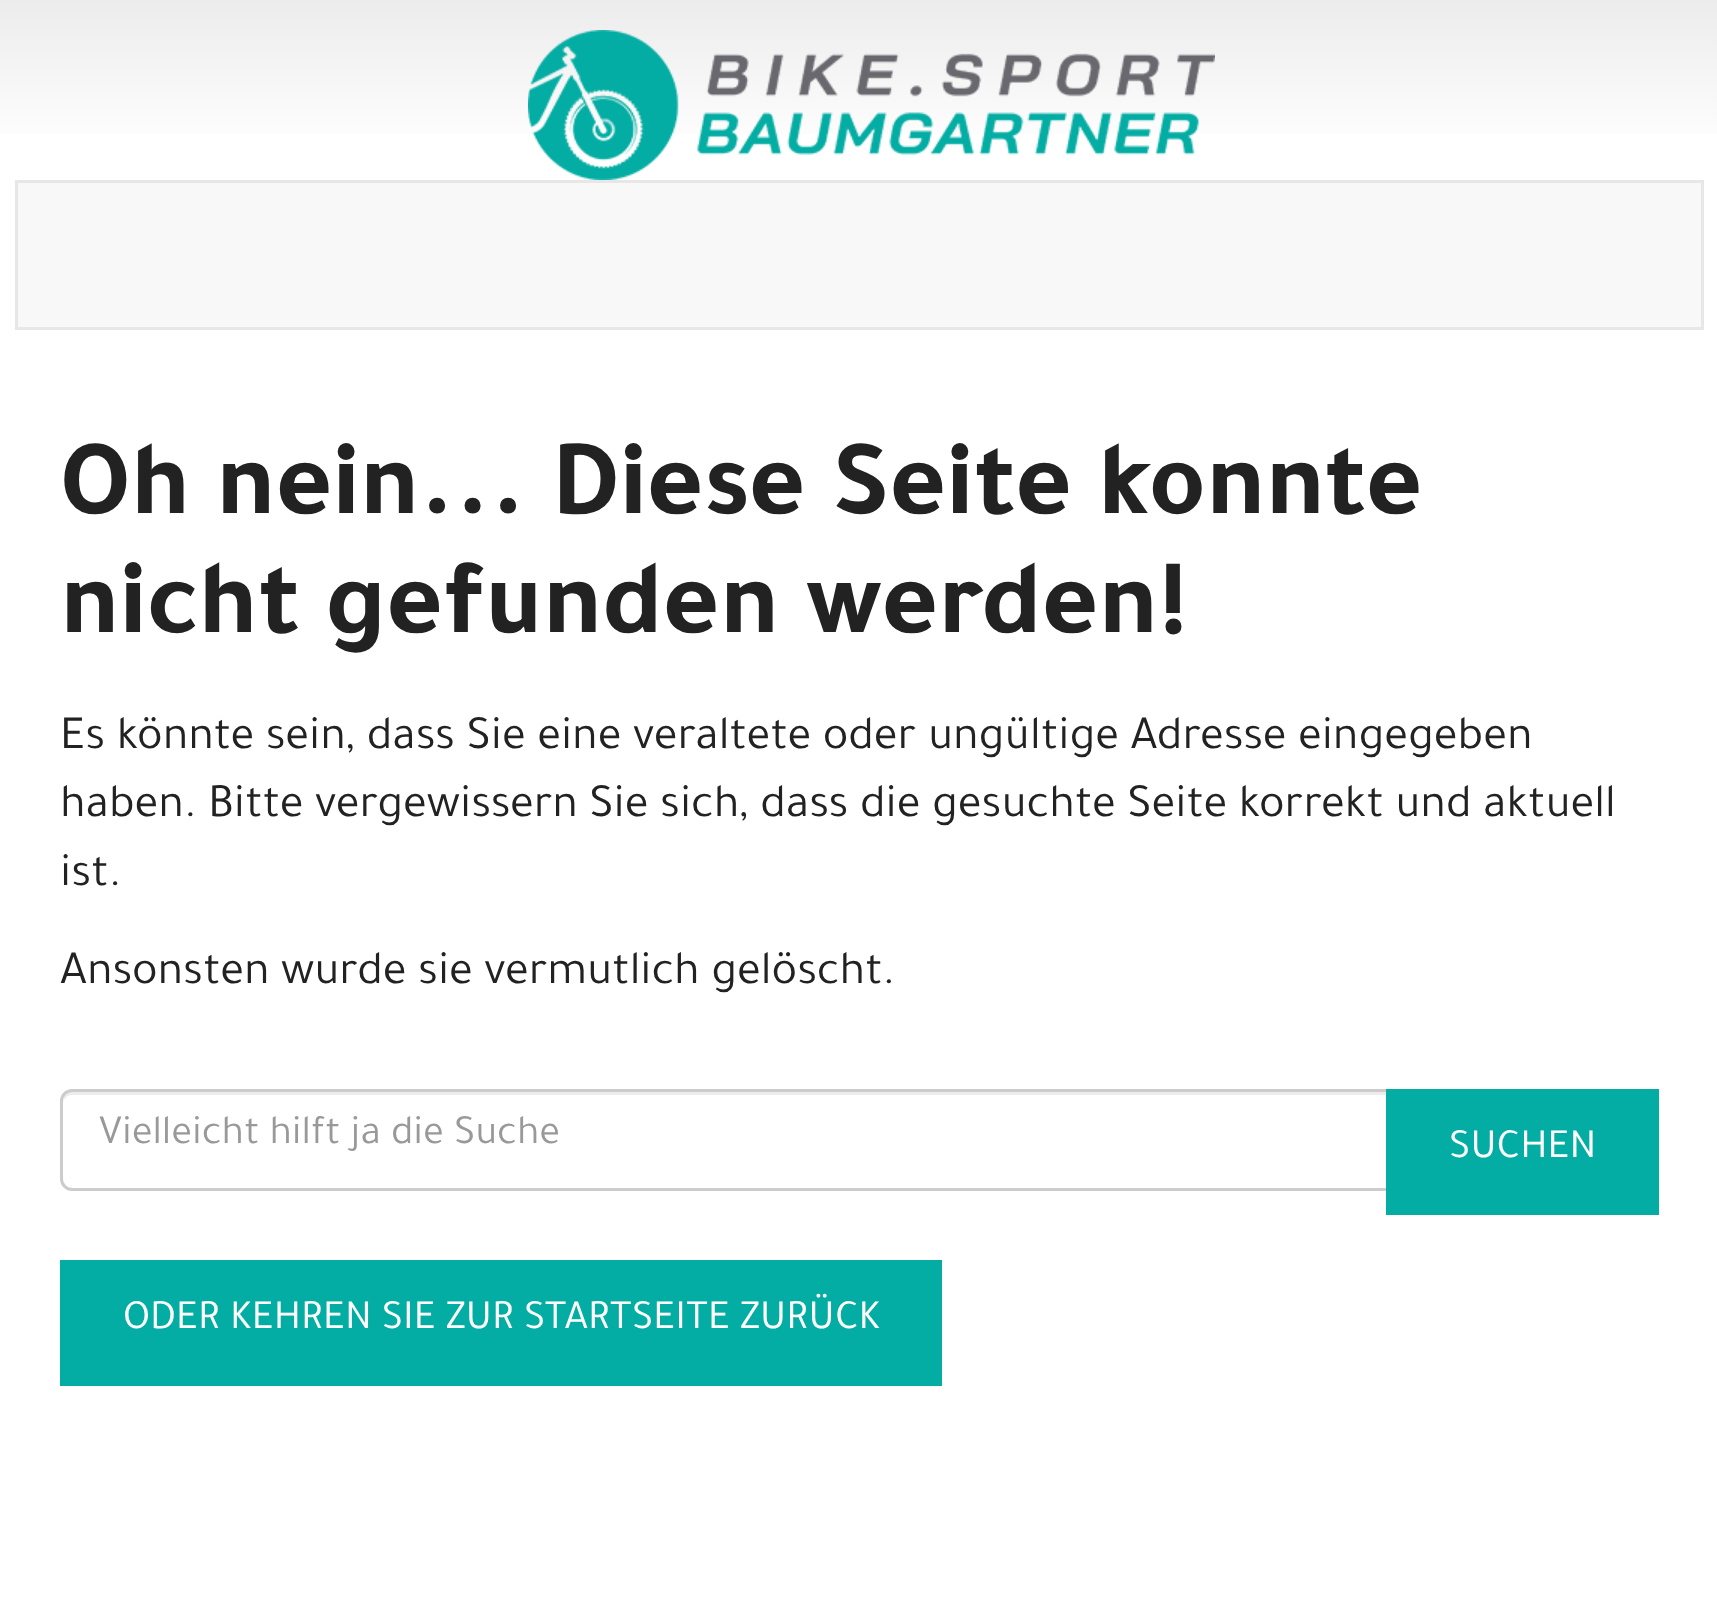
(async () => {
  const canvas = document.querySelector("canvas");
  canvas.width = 1717;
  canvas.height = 1619;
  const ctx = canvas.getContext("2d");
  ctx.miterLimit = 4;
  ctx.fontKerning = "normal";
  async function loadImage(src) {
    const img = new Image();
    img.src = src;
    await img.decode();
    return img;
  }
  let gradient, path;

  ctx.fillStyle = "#ffffff";
  ctx.fillRect(0, 0, 1717, 1619);
  gradient = ctx.createLinearGradient(860, 0, 860, 405);
  gradient.addColorStop(0, "#ececec");
  gradient.addColorStop(0.38, "#ffffff");
  ctx.fillStyle = gradient;
  ctx.fillRect(0, 0, 1717, 134);
  ctx.drawImage(await loadImage("img/1.png"), 528, 30, 687, 150);
  ctx.fillStyle = "#f8f8f8";
  ctx.beginPath();
  ctx.rect(16.5, 181.5, 1686, 147);
  ctx.fill();
  ctx.strokeStyle = "#e7e7e7";
  ctx.lineWidth = 3;
  ctx.stroke();
  ctx.fillStyle = "#ececec";
  path = new Path2D("M72 1095H1386V1092H72C65 1092 63 1098 63 1104C63 1099 67 1095 72 1095Z");
  ctx.fill(path);
  ctx.beginPath();
  ctx.roundRect(61.5, 1090.5, 1326, 99, [10.5, 0, 0, 10.5]);
  ctx.strokeStyle = "#cccccc";
  ctx.stroke();
  ctx.fillStyle = "#03ada4";
  ctx.fillRect(1386, 1089, 273, 126);
  ctx.fillRect(60, 1260, 882, 126);
  ctx.font = "bold 108px Tajawal";
  ctx.fillStyle = "#222222";
  ctx.fillText("Oh nein... Diese Seite konnte", 60, 513);
  ctx.fillText("nicht gefunden werden!", 60, 632);
  ctx.font = "48px Tajawal";
  for (const [text, x, y] of [
    ["Es könnte sein, dass Sie eine veraltete oder ungültige Adresse eingegeben", 60, 748],
    ["haben. Bitte vergewissern Sie sich, dass die gesuchte Seite korrekt und aktuell", 60, 816],
    ["ist.", 60, 885],
    ["Ansonsten wurde sie vermutlich gelöscht.", 60, 983],
  ]) {
    ctx.fillText(text, x, y);
  }
  ctx.font = "42px Tajawal";
  ctx.fillStyle = "#999999";
  ctx.fillText("Vielleicht hilft ja die Suche", 99, 1143);
  ctx.fillStyle = "#ffffff";
  ctx.fillText("SUCHEN", 1449, 1157);
  ctx.fillText("ODER KEHREN SIE ZUR STARTSEITE ZURÜCK", 123, 1328);
})();
